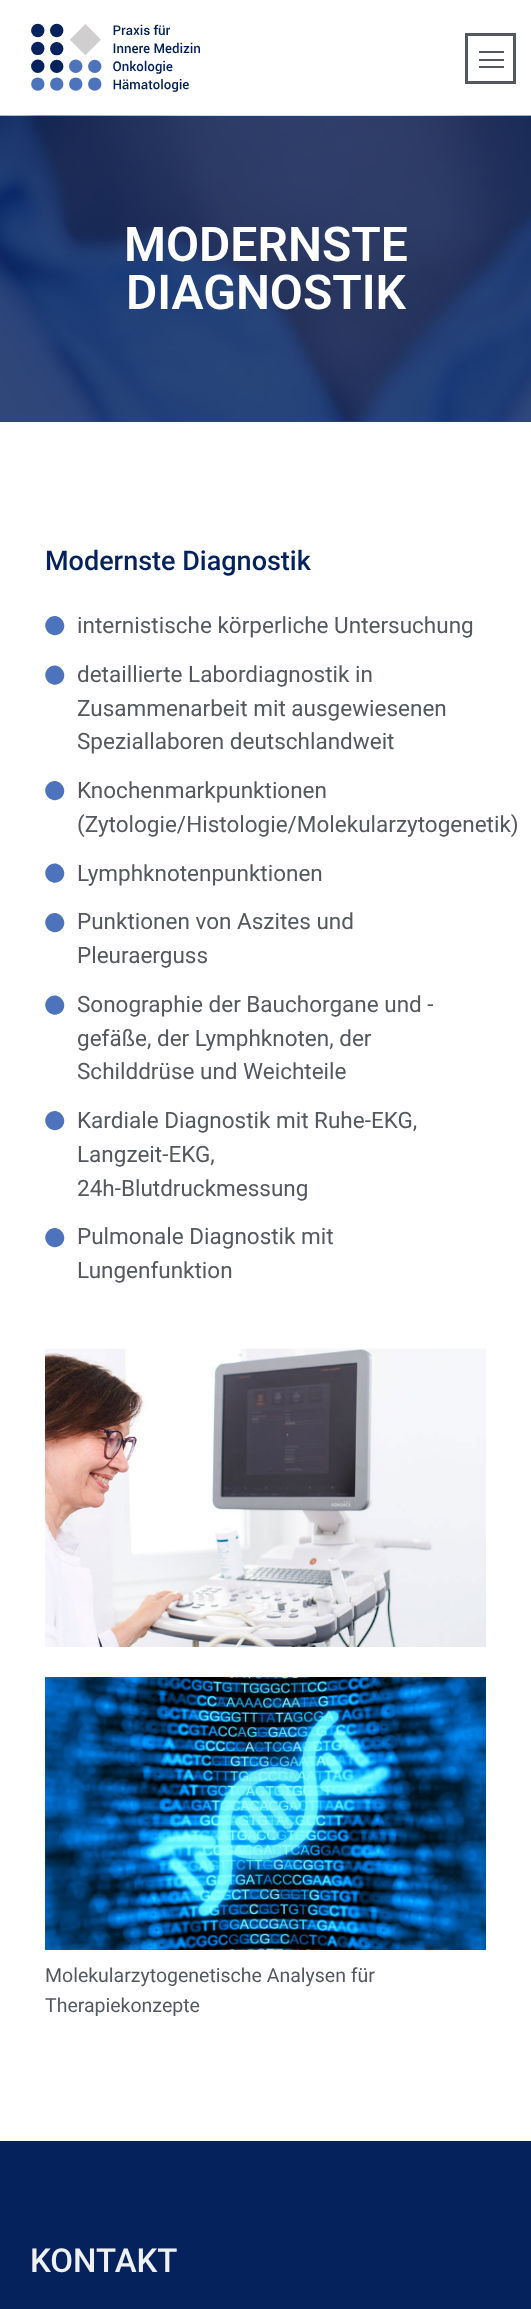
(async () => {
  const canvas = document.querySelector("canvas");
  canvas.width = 531;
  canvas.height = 2309;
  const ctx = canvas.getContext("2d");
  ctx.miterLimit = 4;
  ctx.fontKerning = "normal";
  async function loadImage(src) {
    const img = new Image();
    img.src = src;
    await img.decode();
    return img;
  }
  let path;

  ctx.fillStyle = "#ffffff";
  ctx.fillRect(0, 0, 531, 2309);
  ctx.drawImage(await loadImage("img/1.png"), 31, 23, 169, 69);
  ctx.strokeStyle = "#54595f";
  ctx.lineWidth = 3;
  ctx.strokeRect(466.5, 34.5, 48, 48);
  for (const [x, y, w, h, color] of [
    [479, 51, 25, 2, "#54595f"],
    [479, 59, 25, 2, "#54595f"],
    [479, 66, 25, 2, "#54595f"],
  ]) {
    ctx.fillStyle = color;
    ctx.fillRect(x, y, w, h);
  }
  ctx.drawImage(await loadImage("img/2.png"), 0, 115, 531, 307);
  ctx.fillStyle = "rgba(6, 34, 92, 0.82)";
  ctx.fillRect(0, 116, 531, 306);
  ctx.fillStyle = "#4d73bd";
  path = new Path2D("M48 619C57 610 70 623.5 61.5 632.5C52.5 641 39.5 628 48 619Z");
  ctx.fill(path);
  path = new Path2D("M48 668.5C57 659.5 70 673 61.5 682C52.5 690.5 39.5 677.5 48 668.5Z");
  ctx.fill(path);
  path = new Path2D("M48 784C57 775 70 788.5 61.5 797.5C52.5 806 39.5 793 48 784Z");
  ctx.fill(path);
  path = new Path2D("M48 866.5C57 857.5 70 871 61.5 880C52.5 888.5 39.5 875.5 48 866.5Z");
  ctx.fill(path);
  path = new Path2D("M48 916C57 907 70 920.5 61.5 929.5C52.5 938 39.5 925 48 916Z");
  ctx.fill(path);
  path = new Path2D("M48 998.5C57 989.5 70 1003 61.5 1012C52.5 1020.5 39.5 1007.5 48 998.5Z");
  ctx.fill(path);
  path = new Path2D("M48 1114C57 1105 70 1118.5 61.5 1127.5C52.5 1136 39.5 1123 48 1114Z");
  ctx.fill(path);
  path = new Path2D("M48 1231C57 1222 70 1235.5 61.5 1244.5C52.5 1253 39.5 1240 48 1231Z");
  ctx.fill(path);
  ctx.drawImage(await loadImage("img/3.png"), 45, 1348, 441, 299);
  ctx.drawImage(await loadImage("img/4.png"), 45, 1677, 441, 273);
  ctx.fillStyle = "#06225c";
  ctx.fillRect(0, 2141, 531, 168);
  ctx.font = "600 48px Roboto";
  ctx.fillStyle = "#ffffff";
  ctx.fillText("MODERNSTE", 124, 261);
  ctx.fillText("DIAGNOSTIK", 126, 309);
  ctx.font = "500 27px Roboto";
  ctx.fillStyle = "#06225c";
  ctx.fillText("Modernste Diagnostik", 45, 570);
  ctx.font = "22.5px Roboto";
  ctx.fillStyle = "#54595f";
  for (const [text, x, y] of [
    ["internistische körperliche Untersuchung", 77, 633],
    ["detaillierte Labordiagnostik in", 77, 682],
    ["Zusammenarbeit mit ausgewiesenen", 77, 716],
    ["Speziallaboren deutschlandweit", 77, 749],
    ["Knochenmarkpunktionen", 77, 798],
    ["(Zytologie/Histologie/Molekularzytogenetik)", 77, 832],
    ["Lymphknotenpunktionen", 77, 881],
    ["Punktionen von Aszites und", 77, 929],
    ["Pleuraerguss", 77, 963],
    ["Sonographie der Bauchorgane und -", 77, 1012],
    ["gefäße, der Lymphknoten, der", 77, 1046],
    ["Schilddrüse und Weichteile", 77, 1079],
    ["Kardiale Diagnostik mit Ruhe-EKG,", 77, 1128],
    ["Langzeit-EKG,", 77, 1162],
    ["24h-Blutdruckmessung", 77, 1196],
    ["Pulmonale Diagnostik mit", 77, 1244],
    ["Lungenfunktion", 77, 1278],
  ]) {
    ctx.fillText(text, x, y);
  }
  ctx.font = "19.5px Roboto";
  ctx.fillText("Molekularzytogenetische Analysen für", 45, 1982);
  ctx.fillText("Therapiekonzepte", 45, 2012);
  ctx.font = "500 33px Roboto";
  ctx.fillStyle = "#eef0f4";
  ctx.fillText("KONTAKT", 30, 2272);
})();
